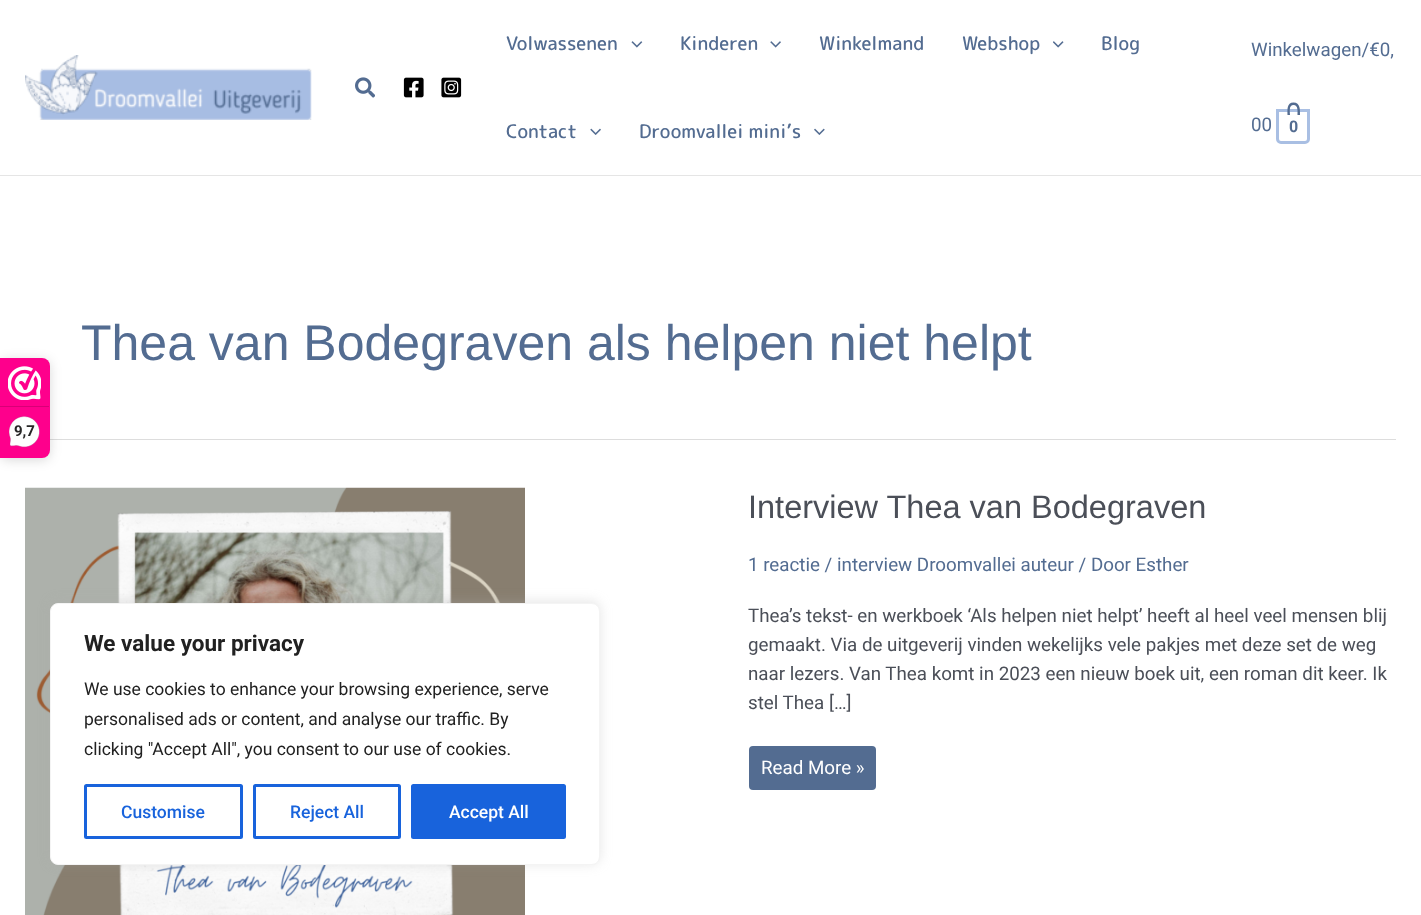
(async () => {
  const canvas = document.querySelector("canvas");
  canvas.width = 1421;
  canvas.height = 915;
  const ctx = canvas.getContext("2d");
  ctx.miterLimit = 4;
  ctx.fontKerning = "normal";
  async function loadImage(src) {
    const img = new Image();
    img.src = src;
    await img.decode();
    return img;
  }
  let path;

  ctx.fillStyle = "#ffffff";
  ctx.fillRect(0, 0, 1421, 915);
  ctx.fillStyle = "#dddddd";
  ctx.fillRect(50, 439, 1346, 1);
  ctx.fillStyle = "rgba(0, 0, 0, 0.15)";
  ctx.filter = "blur(6px)";
  ctx.beginPath();
  ctx.roundRect(0, 360, 50, 100, 8);
  ctx.fill();
  ctx.filter = "none";
  ctx.fillStyle = "#fe008c";
  ctx.beginPath();
  ctx.roundRect(0, 358, 50, 100, [0, 8, 8, 0]);
  ctx.fill();
  ctx.drawImage(await loadImage("img/1.png"), 8, 366, 33, 34);
  ctx.fillStyle = "#d80077";
  ctx.fillRect(0, 406, 49, 1);
  ctx.drawImage(await loadImage("img/2.png"), 9, 416, 31, 32);
  ctx.fillStyle = "#e5e5e5";
  ctx.fillRect(0, 175, 1421, 1);
  ctx.drawImage(await loadImage("img/3.png"), 25, 55, 287, 65);
  ctx.drawImage(await loadImage("img/4.png"), 355, 77, 20, 21);
  ctx.drawImage(await loadImage("img/5.png"), 403, 77, 21, 21);
  ctx.drawImage(await loadImage("img/6.png"), 441, 77, 21, 21);
  ctx.drawImage(await loadImage("img/7.png"), 631, 41, 12, 7);
  ctx.drawImage(await loadImage("img/8.png"), 770, 41, 11, 7);
  ctx.drawImage(await loadImage("img/9.png"), 1053, 41, 11, 7);
  ctx.drawImage(await loadImage("img/10.png"), 590, 128, 11, 7);
  ctx.drawImage(await loadImage("img/11.png"), 814, 128, 11, 7);
  ctx.beginPath();
  ctx.roundRect(1277.5, 110.5, 31, 32, [0, 0, 3.5, 3.5]);
  ctx.strokeStyle = "#a9bfe3";
  ctx.lineWidth = 3;
  ctx.stroke();
  ctx.fillStyle = "#536c91";
  path = new Path2D("M1293.5 102.5C1300.5 102.5 1300 110 1300 115H1287.5C1287.5 110 1286.5 102.5 1293.5 102.5ZM1293.5 105C1298.5 105 1297.5 112 1297.5 115H1290C1290 112 1288.5 105 1293.5 105Z");
  ctx.fill(path, "evenodd");
  ctx.drawImage(await loadImage("img/12.png"), 25, 487, 500, 428);
  ctx.beginPath();
  ctx.roundRect(749, 746, 127, 44, 4);
  ctx.fill();
  ctx.fillStyle = "rgba(172, 171, 171, 0.3)";
  ctx.filter = "blur(6px)";
  ctx.beginPath();
  ctx.roundRect(50, 601, 550, 263, 8);
  ctx.fill();
  ctx.filter = "none";
  ctx.fillStyle = "#ffffff";
  ctx.beginPath();
  ctx.roundRect(50.5, 603.5, 549, 261, 7.5);
  ctx.fill();
  ctx.strokeStyle = "#f4f4f4";
  ctx.lineWidth = 1;
  ctx.stroke();
  ctx.beginPath();
  ctx.roundRect(85.5, 785.5, 156, 52, 1);
  ctx.strokeStyle = "#1863dc";
  ctx.lineWidth = 3;
  ctx.stroke();
  ctx.beginPath();
  ctx.roundRect(254.5, 785.5, 145, 52, 1);
  ctx.stroke();
  ctx.fillStyle = "#1863dc";
  ctx.beginPath();
  ctx.roundRect(412.5, 785.5, 152, 52, 1);
  ctx.fill();
  ctx.stroke();
  ctx.font = "bold 15px Roboto";
  ctx.fillStyle = "#272626";
  ctx.fillText("9,7", 14, 436);
  ctx.font = "500 18.75px 'Rounded Mplus 1c'";
  ctx.fillStyle = "#536c91";
  for (const [text, x, y] of [
    ["Volwassenen", 506, 50],
    ["Kinderen", 680, 50],
    ["Winkelmand", 819, 50],
    ["Webshop", 962, 50],
    ["Blog", 1101, 50],
    ["Contact", 506, 138],
    ["Droomvallei mini’s", 639, 138],
  ]) {
    ctx.fillText(text, x, y);
  }
  ctx.font = "18.75px Roboto";
  ctx.fillText("Winkelwagen/€0,", 1251, 56);
  ctx.fillText("00", 1251, 131);
  ctx.font = "bold 16px Roboto";
  ctx.fillText("0", 1289, 132);
  ctx.font = "50px Liberation Sans";
  ctx.fillText("Thea van Bodegraven als helpen niet helpt", 81, 360);
  ctx.font = "32.5px Liberation Sans";
  ctx.fillStyle = "#4b4f58";
  ctx.fillText("Interview Thea van Bodegraven", 748, 518);
  ctx.font = "18.75px Roboto";
  ctx.fillStyle = "#536c91";
  ctx.fillText("1 reactie / interview Droomvallei auteur / Door Esther", 748, 571);
  ctx.fillStyle = "#4b4f58";
  for (const [text, x, y] of [
    ["Thea’s tekst- en werkboek ‘Als helpen niet helpt’ heeft al heel veel mensen blij", 748, 622],
    ["gemaakt. Via de uitgeverij vinden wekelijks vele pakjes met deze set de weg", 748, 651],
    ["naar lezers. Van Thea komt in 2023 een nieuw boek uit, een roman dit keer. Ik", 748, 680],
    ["stel Thea […]", 748, 709],
  ]) {
    ctx.fillText(text, x, y);
  }
  ctx.fillStyle = "#ffffff";
  ctx.fillText("Read More »", 761, 774);
  ctx.font = "bold 22.5px Roboto";
  ctx.fillStyle = "#212121";
  ctx.fillText("We value your privacy", 84, 651);
  ctx.font = "17.5px Roboto";
  for (const [text, x, y] of [
    ["We use cookies to enhance your browsing experience, serve", 84, 695],
    ["personalised ads or content, and analyse our traffic. By", 84, 725],
    ["clicking \"Accept All\", you consent to our use of cookies.", 84, 755],
  ]) {
    ctx.fillText(text, x, y);
  }
  ctx.font = "500 17.5px Roboto";
  ctx.fillStyle = "#1863dc";
  ctx.fillText("Customise", 121, 818);
  ctx.fillText("Reject All", 290, 818);
  ctx.fillStyle = "#ffffff";
  ctx.fillText("Accept All", 449, 818);
})();
